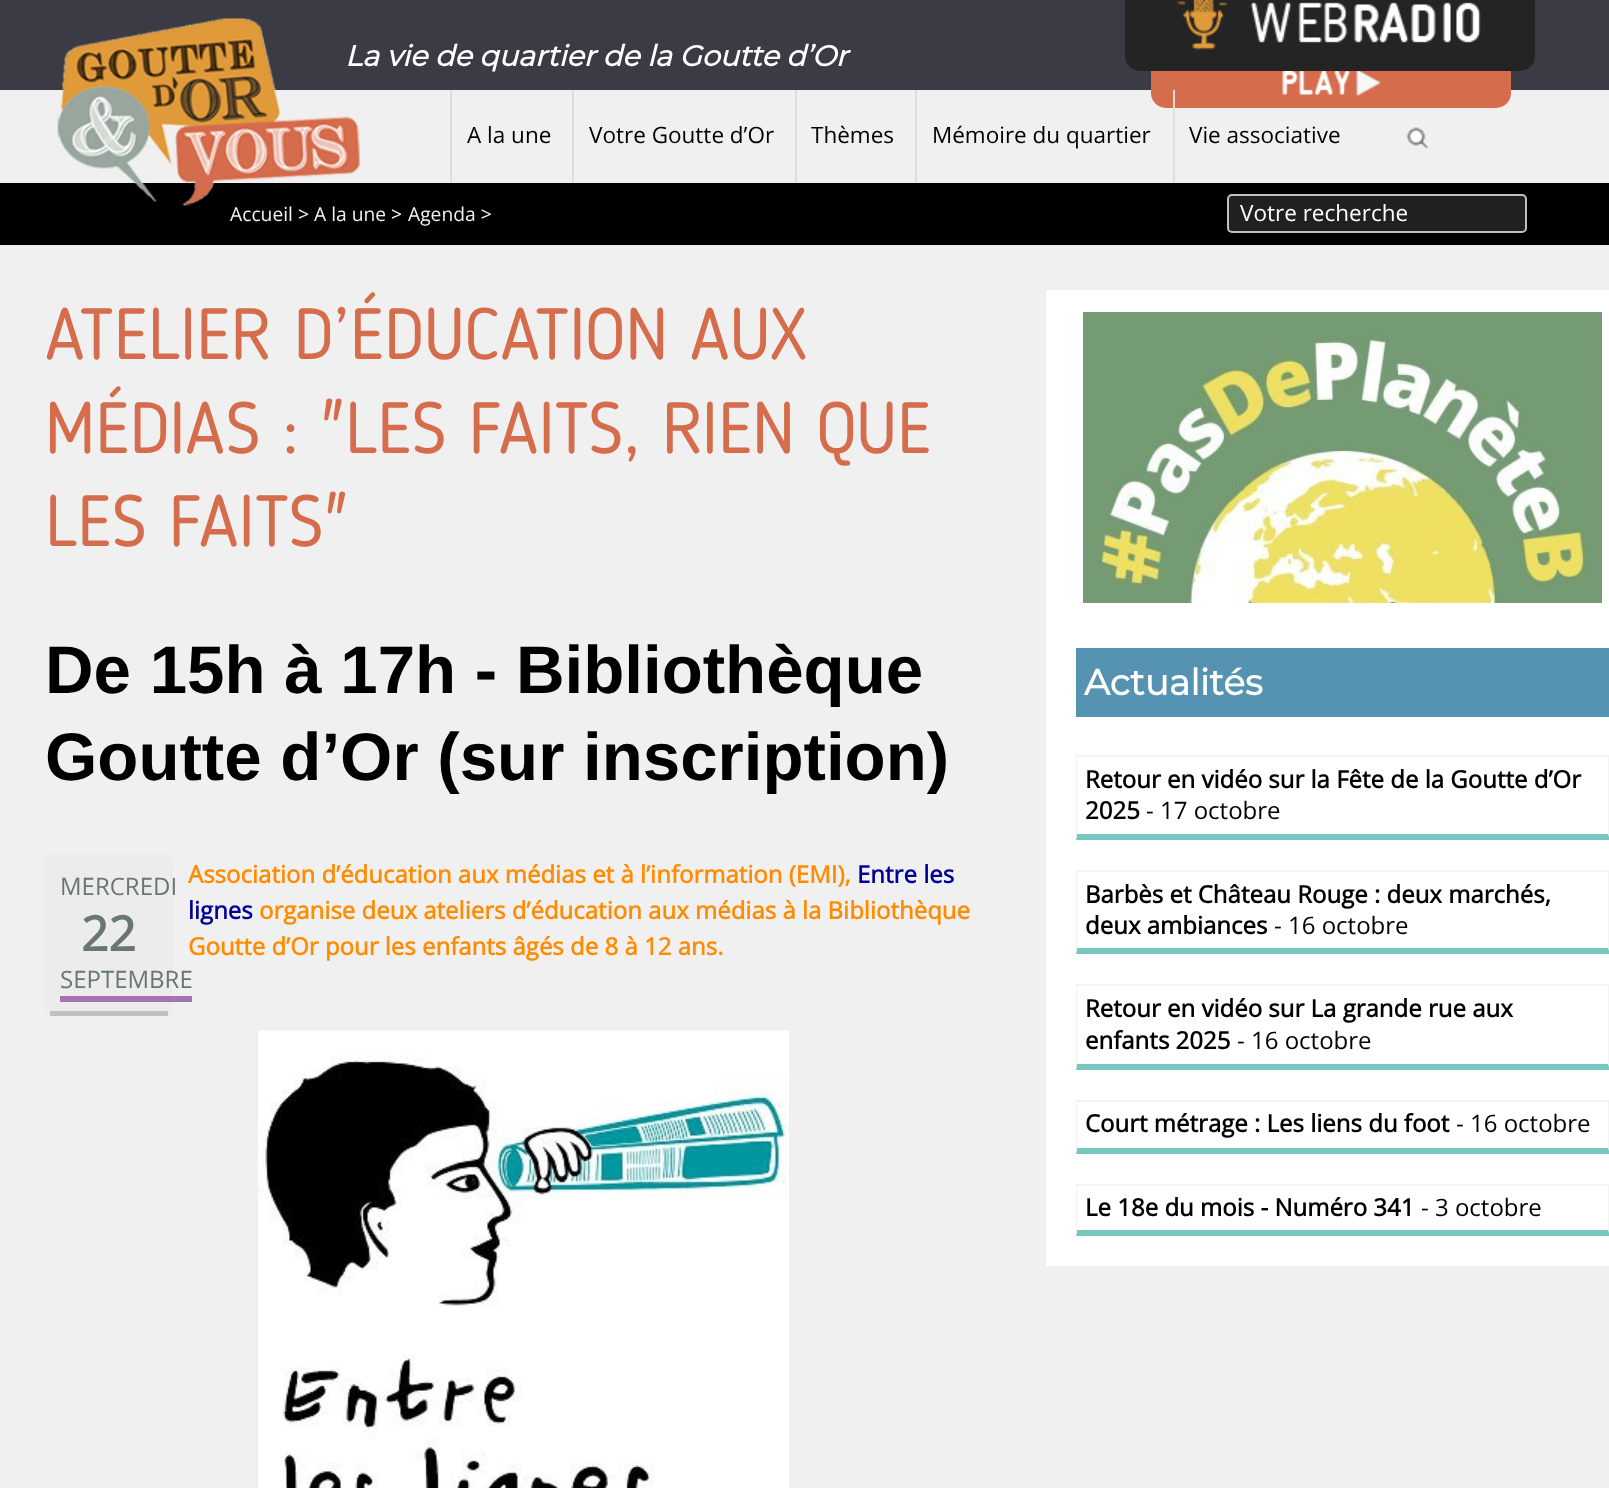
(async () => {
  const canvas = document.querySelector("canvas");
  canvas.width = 1609;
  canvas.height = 1488;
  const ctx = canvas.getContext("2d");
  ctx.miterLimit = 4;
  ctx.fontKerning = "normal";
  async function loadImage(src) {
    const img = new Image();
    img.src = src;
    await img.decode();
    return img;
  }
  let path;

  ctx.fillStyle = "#f0f0f0";
  ctx.fillRect(0, 0, 1609, 1488);
  ctx.fillStyle = "#3b3b45";
  ctx.fillRect(0, 0, 1609, 90);
  ctx.fillStyle = "#d56c4c";
  ctx.beginPath();
  ctx.roundRect(1151, 38, 360, 70, 15);
  ctx.fill();
  ctx.fillStyle = "#242424";
  ctx.beginPath();
  ctx.roundRect(1125, -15, 410, 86, 15);
  ctx.fill();
  ctx.drawImage(await loadImage("img/1.png"), 1177, 0, 304, 50);
  ctx.drawImage(await loadImage("img/2.png"), 1282, 71, 99, 26);
  for (const [x, y, w, h, color] of [
    [450, 90, 2, 93, "#dddddd"],
    [572, 90, 2, 93, "#dddddd"],
    [795, 90, 2, 93, "#dddddd"],
    [915, 90, 2, 93, "#dddddd"],
    [1173, 90, 2, 93, "#dddddd"],
  ]) {
    ctx.fillStyle = color;
    ctx.fillRect(x, y, w, h);
  }
  ctx.drawImage(await loadImage("img/4.png"), 1406, 127, 23, 22);
  ctx.fillStyle = "#000000";
  ctx.fillRect(0, 183, 1609, 62);
  ctx.fillStyle = "#202020";
  ctx.beginPath();
  ctx.roundRect(1228, 195, 298, 37, 4);
  ctx.fill();
  ctx.strokeStyle = "#c0c0c0";
  ctx.lineWidth = 2;
  ctx.stroke();
  ctx.fillStyle = "#ececec";
  ctx.beginPath();
  ctx.roundRect(45, 855, 128, 161, 9);
  ctx.fill();
  ctx.fillStyle = "#bfc0c0";
  ctx.fillRect(50, 1011, 118, 5);
  ctx.fillStyle = "#a573b1";
  ctx.fillRect(60, 996, 132, 6);
  ctx.drawImage(await loadImage("img/5.png"), 258, 1030, 531, 458);
  ctx.fillStyle = "#ffffff";
  ctx.fillRect(1046, 290, 563, 976);
  ctx.drawImage(await loadImage("img/6.png"), 1083, 312, 519, 291);
  ctx.fillStyle = "#5692b1";
  ctx.fillRect(1076, 648, 533, 69);
  ctx.fillStyle = "#f3f3f3";
  ctx.fillRect(1076, 755, 533, 2);
  path = new Path2D("M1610 754V840L1608 834V756Z");
  ctx.fill(path);
  ctx.fillStyle = "#76c7c0";
  path = new Path2D("M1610 840H1076L1077 834H1608Z");
  ctx.fill(path);
  ctx.fillStyle = "#f3f3f3";
  path = new Path2D("M1076 840V754L1077 756V834Z");
  ctx.fill(path);
  ctx.fillRect(1076, 870, 533, 2);
  path = new Path2D("M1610 870V954L1608 948V872Z");
  ctx.fill(path);
  ctx.fillStyle = "#76c7c0";
  path = new Path2D("M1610 954H1076L1077 948H1608Z");
  ctx.fill(path);
  ctx.fillStyle = "#f3f3f3";
  path = new Path2D("M1076 954V870L1077 872V948Z");
  ctx.fill(path);
  ctx.fillRect(1076, 984, 533, 2);
  path = new Path2D("M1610 984V1070L1608 1064V986Z");
  ctx.fill(path);
  ctx.fillStyle = "#76c7c0";
  path = new Path2D("M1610 1070H1076L1077 1064H1608Z");
  ctx.fill(path);
  ctx.fillStyle = "#f3f3f3";
  path = new Path2D("M1076 1070V984L1077 986V1064Z");
  ctx.fill(path);
  ctx.fillRect(1076, 1100, 533, 2);
  path = new Path2D("M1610 1100V1154L1608 1148V1101Z");
  ctx.fill(path);
  ctx.fillStyle = "#76c7c0";
  path = new Path2D("M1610 1154H1076L1077 1148H1608Z");
  ctx.fill(path);
  ctx.fillStyle = "#f3f3f3";
  path = new Path2D("M1076 1154V1100L1077 1101V1148Z");
  ctx.fill(path);
  ctx.fillRect(1076, 1184, 533, 2);
  path = new Path2D("M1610 1184V1236L1608 1230V1185Z");
  ctx.fill(path);
  ctx.fillStyle = "#76c7c0";
  path = new Path2D("M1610 1236H1076L1077 1230H1608Z");
  ctx.fill(path);
  ctx.fillStyle = "#f3f3f3";
  path = new Path2D("M1076 1236V1184L1077 1185V1230Z");
  ctx.fill(path);
  ctx.font = "italic bold 28.75px Montserrat";
  ctx.fillStyle = "#ffffff";
  ctx.fillText("La vie de quartier de la Goutte d’Or", 345, 66);
  ctx.drawImage(await loadImage("img/3.png"), 57, 18, 303, 188);
  ctx.font = "22.5px Open Sans";
  ctx.fillStyle = "#000000";
  for (const [text, x, y] of [
    ["A la une", 467, 143],
    ["Votre Goutte d’Or", 589, 143],
    ["Thèmes", 811, 143],
    ["Mémoire du quartier", 932, 143],
    ["Vie associative", 1189, 143],
  ]) {
    ctx.fillText(text, x, y);
  }
  ctx.font = "19.25px Open Sans";
  ctx.fillStyle = "#f0f0f0";
  ctx.fillText("Accueil > A la une >", 230, 221);
  ctx.fillText("Agenda >", 408, 221);
  ctx.font = "22.5px Open Sans";
  ctx.fillStyle = "#ffffff";
  ctx.fillText("Votre recherche", 1240, 221);
  ctx.font = "72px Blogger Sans";
  ctx.fillStyle = "#d56c4c";
  for (const [text, x, y] of [
    ["ATELIER D’ÉDUCATION AUX", 45, 359],
    ["MÉDIAS : \"LES FAITS, RIEN QUE", 45, 453],
    ["LES FAITS\"", 45, 546],
  ]) {
    ctx.fillText(text, x, y);
  }
  ctx.font = "bold 67.25px Liberation Sans";
  ctx.fillStyle = "#000000";
  ctx.fillText("De 15h à 17h - Bibliothèque", 45, 693);
  ctx.fillText("Goutte d’Or (sur inscription)", 45, 780);
  ctx.font = "24px Open Sans";
  ctx.fillStyle = "#6a7575";
  ctx.fillText("MERCREDI", 60, 895);
  ctx.font = "bold 48px Open Sans";
  ctx.fillText("22", 81, 951);
  ctx.font = "24px Open Sans";
  ctx.fillText("SEPTEMBRE", 60, 988);
  ctx.font = "bold 24px Open Sans";
  ctx.fillStyle = "#ff8c00";
  ctx.fillText("Association d’éducation aux médias et à l’information (EMI),", 188, 883);
  ctx.fillStyle = "#000099";
  ctx.fillText("Entre les", 857, 883);
  ctx.fillText("lignes", 188, 919);
  ctx.fillStyle = "#ff8c00";
  ctx.fillText("organise deux ateliers d’éducation aux médias à la Bibliothèque", 259, 919);
  ctx.fillText("Goutte d’Or pour les enfants âgés de 8 à 12 ans.", 188, 955);
  ctx.font = "bold 36px Montserrat";
  ctx.fillStyle = "#ffffff";
  ctx.fillText("Actualités", 1084, 695);
  ctx.font = "bold 24px Open Sans";
  ctx.fillStyle = "#000000";
  ctx.fillText("Retour en vidéo sur la Fête de la Goutte d’Or", 1085, 788);
  ctx.fillText("2025", 1085, 819);
  ctx.font = "24px Open Sans";
  ctx.fillText("- 17 octobre", 1146, 819);
  ctx.font = "bold 24px Open Sans";
  ctx.fillText("Barbès et Château Rouge : deux marchés,", 1085, 903);
  ctx.fillText("deux ambiances", 1085, 934);
  ctx.font = "24px Open Sans";
  ctx.fillText("- 16 octobre", 1274, 934);
  ctx.font = "bold 24px Open Sans";
  ctx.fillText("Retour en vidéo sur La grande rue aux", 1085, 1017);
  ctx.fillText("enfants 2025", 1085, 1049);
  ctx.font = "24px Open Sans";
  ctx.fillText("- 16 octobre", 1237, 1049);
  ctx.font = "bold 24px Open Sans";
  ctx.fillText("Court métrage : Les liens du foot", 1085, 1132);
  ctx.font = "24px Open Sans";
  ctx.fillText("- 16 octobre", 1456, 1132);
  ctx.font = "bold 24px Open Sans";
  ctx.fillText("Le 18e du mois - Numéro 341", 1085, 1216);
  ctx.font = "24px Open Sans";
  ctx.fillText("- 3 octobre", 1421, 1216);
})();
